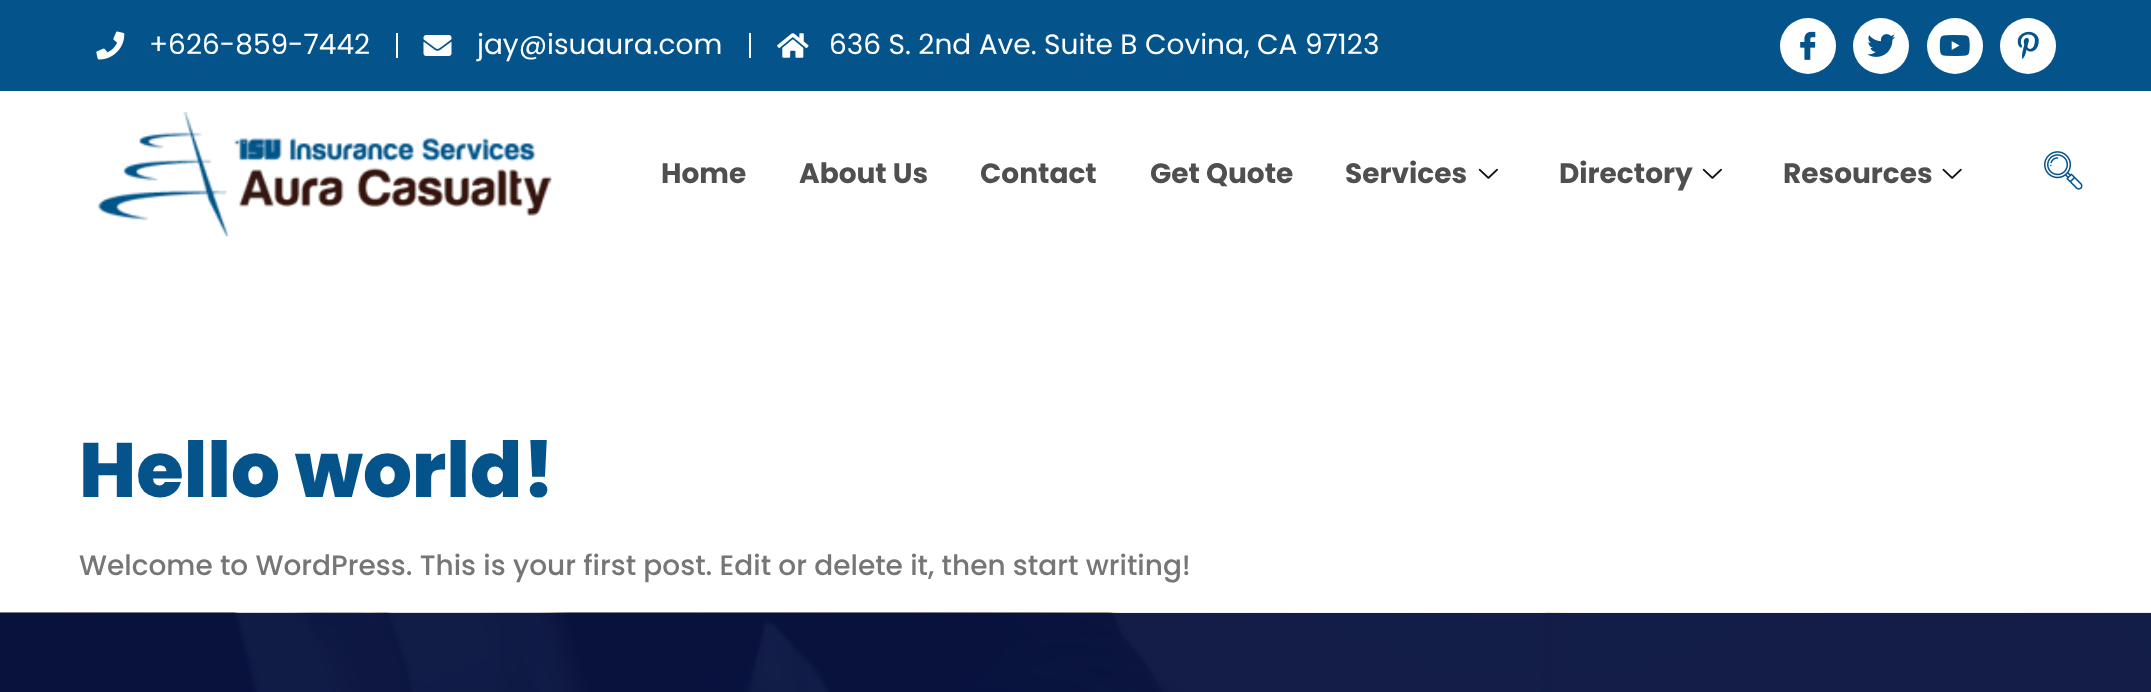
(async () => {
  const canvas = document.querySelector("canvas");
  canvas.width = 2151;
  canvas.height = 692;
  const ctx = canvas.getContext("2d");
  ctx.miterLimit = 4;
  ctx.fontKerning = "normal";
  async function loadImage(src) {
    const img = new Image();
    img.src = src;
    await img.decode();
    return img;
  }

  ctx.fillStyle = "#ffffff";
  ctx.fillRect(0, 0, 2151, 692);
  ctx.fillStyle = "#04548b";
  ctx.fillRect(0, 0, 2151, 91);
  ctx.drawImage(await loadImage("img/1.png"), 96, 31, 29, 29);
  ctx.fillStyle = "#ffffff";
  ctx.fillRect(396, 33, 2, 25);
  ctx.drawImage(await loadImage("img/2.png"), 423, 35, 29, 21);
  ctx.fillRect(749, 33, 2, 25);
  ctx.drawImage(await loadImage("img/3.png"), 777, 33, 32, 25);
  ctx.beginPath();
  ctx.arc(1808, 46, 28, 0, Math.PI * 2);
  ctx.fill();
  ctx.drawImage(await loadImage("img/4.png"), 1800, 31, 16, 29);
  ctx.beginPath();
  ctx.arc(1881, 46, 28, 0, Math.PI * 2);
  ctx.fill();
  ctx.drawImage(await loadImage("img/5.png"), 1867, 34, 29, 23);
  ctx.beginPath();
  ctx.arc(1955, 46, 28, 0, Math.PI * 2);
  ctx.fill();
  ctx.drawImage(await loadImage("img/6.png"), 1939, 35, 31, 21);
  ctx.beginPath();
  ctx.arc(2028, 46, 28, 0, Math.PI * 2);
  ctx.fill();
  ctx.drawImage(await loadImage("img/7.png"), 2017, 31, 22, 29);
  ctx.drawImage(await loadImage("img/8.png"), 97, 112, 455, 125);
  ctx.drawImage(await loadImage("img/9.png"), 1478, 168, 20, 11);
  ctx.drawImage(await loadImage("img/9.png"), 1702, 168, 20, 11);
  ctx.drawImage(await loadImage("img/10.png"), 1942, 168, 20, 11);
  ctx.drawImage(await loadImage("img/11.png"), 2044, 151, 39, 39);
  ctx.drawImage(await loadImage("img/12.png"), 0, 612, 2151, 80);
  ctx.font = "28px Poppins";
  for (const [text, x, y] of [
    ["+626-859-7442", 149, 54],
    ["jay@isuaura.com", 477, 54],
    ["636 S. 2nd Ave. Suite B Covina, CA 97123", 829, 54],
  ]) {
    ctx.fillText(text, x, y);
  }
  ctx.font = "bold 28px Poppins";
  ctx.fillStyle = "#4f4f4f";
  for (const [text, x, y] of [
    ["Home", 661, 183],
    ["About Us", 799, 183],
    ["Contact", 980, 183],
    ["Get Quote", 1150, 183],
    ["Services", 1345, 183],
    ["Directory", 1559, 183],
    ["Resources", 1783, 183],
  ]) {
    ctx.fillText(text, x, y);
  }
  ctx.font = "800 77px Poppins";
  ctx.fillStyle = "#04548b";
  ctx.fillText("Hello world!", 79, 497);
  ctx.font = "500 28px Poppins";
  ctx.fillStyle = "#767676";
  ctx.fillText("Welcome to WordPress. This is your first post. Edit or delete it, then start writing!", 79, 575);
})();
